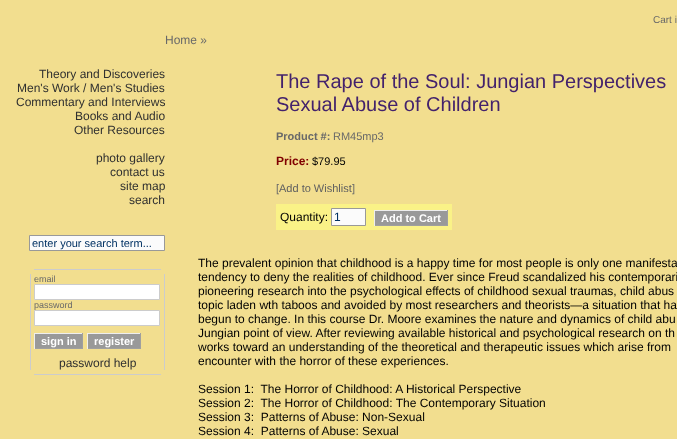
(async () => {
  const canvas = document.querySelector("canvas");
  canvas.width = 677;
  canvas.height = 439;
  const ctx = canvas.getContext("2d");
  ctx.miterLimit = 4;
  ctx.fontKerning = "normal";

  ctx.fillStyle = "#f2de8f";
  ctx.fillRect(0, 0, 677, 439);
  ctx.fillStyle = "#fbfbfb";
  ctx.beginPath();
  ctx.rect(29.5, 235.5, 135, 15);
  ctx.fill();
  ctx.strokeStyle = "#999999";
  ctx.stroke();
  ctx.fillStyle = "#cccccc";
  ctx.fillRect(34, 269, 127, 1);
  ctx.fillRect(30, 274, 1, 96);
  ctx.fillStyle = "#ffffff";
  ctx.beginPath();
  ctx.rect(34.5, 284.5, 125, 15);
  ctx.fill();
  ctx.strokeStyle = "#cccccc";
  ctx.stroke();
  ctx.beginPath();
  ctx.rect(34.5, 310.5, 125, 15);
  ctx.fill();
  ctx.stroke();
  for (const [x, y, w, h, color] of [
    [35, 334, 47, 14, "#999999"],
    [34, 333, 49, 1, "#eeeeee"],
    [82, 333, 1, 16, "#9f9f9f"],
    [34, 348, 49, 1, "#9f9f9f"],
    [34, 333, 1, 16, "#eeeeee"],
    [88, 334, 52, 14, "#999999"],
    [87, 333, 54, 1, "#eeeeee"],
    [140, 333, 1, 16, "#9f9f9f"],
    [87, 348, 54, 1, "#9f9f9f"],
    [87, 333, 1, 16, "#eeeeee"],
    [164, 274, 1, 96, "#cccccc"],
    [34, 374, 127, 1, "#cccccc"],
    [276, 204, 176, 26, "#faf287"],
  ]) {
    ctx.fillStyle = color;
    ctx.fillRect(x, y, w, h);
  }
  ctx.fillStyle = "#fbfbfb";
  ctx.beginPath();
  ctx.rect(331.5, 208.5, 34, 17);
  ctx.fill();
  ctx.strokeStyle = "#999999";
  ctx.stroke();
  for (const [x, y, w, h, color] of [
    [375, 211, 72, 14, "#999999"],
    [374, 210, 74, 1, "#eeeeee"],
    [447, 210, 1, 16, "#9f9f9f"],
    [374, 225, 74, 1, "#9f9f9f"],
    [374, 210, 1, 16, "#eeeeee"],
  ]) {
    ctx.fillStyle = color;
    ctx.fillRect(x, y, w, h);
  }
  ctx.font = "10px Liberation Sans";
  ctx.fillStyle = "#696969";
  ctx.fillText("Cart i", 653, 23);
  ctx.font = "12px Liberation Sans";
  ctx.fillText("Home »", 165, 44);
  ctx.fillStyle = "#303030";
  for (const [text, x, y] of [
    ["Theory and Discoveries", 39, 78],
    ["Men's Work / Men's Studies", 17, 92],
    ["Commentary and Interviews", 16, 106],
    ["Books and Audio", 75, 120],
    ["Other Resources", 74, 134],
    ["photo gallery", 96, 162],
    ["contact us", 110, 176],
    ["site map", 120, 190],
    ["search", 129, 204],
  ]) {
    ctx.fillText(text, x, y);
  }
  ctx.font = "11px Liberation Sans";
  ctx.fillStyle = "#003163";
  ctx.fillText("enter your search term...", 32, 247);
  ctx.font = "9px Liberation Sans";
  ctx.fillStyle = "#696969";
  ctx.fillText("email", 34, 282);
  ctx.fillText("password", 34, 308);
  ctx.font = "bold 11px Liberation Sans";
  ctx.fillStyle = "#ffffff";
  ctx.fillText("sign in", 41, 345);
  ctx.fillText("register", 94, 345);
  ctx.font = "12px Liberation Sans";
  ctx.fillStyle = "#303030";
  ctx.fillText("password help", 59, 367);
  ctx.font = "20px Liberation Sans";
  ctx.fillStyle = "#43226c";
  ctx.fillText("The Rape of the Soul: Jungian Perspectives", 276, 88);
  ctx.fillText("Sexual Abuse of Children", 276, 111);
  ctx.font = "bold 11px Liberation Sans";
  ctx.fillStyle = "#696969";
  ctx.fillText("Product #:", 276, 140);
  ctx.font = "11px Liberation Sans";
  ctx.fillText("RM45mp3", 333, 140);
  ctx.font = "bold 12px Liberation Sans";
  ctx.fillStyle = "#800000";
  ctx.fillText("Price:", 276, 165);
  ctx.font = "11px Liberation Sans";
  ctx.fillStyle = "#000000";
  ctx.fillText("$79.95", 312, 165);
  ctx.fillStyle = "#696969";
  ctx.fillText("[", 276, 192);
  ctx.fillStyle = "#606060";
  ctx.fillText("Add to Wishlist", 279, 192);
  ctx.fillStyle = "#696969";
  ctx.fillText("]", 352, 192);
  ctx.font = "12px Liberation Sans";
  ctx.fillStyle = "#000000";
  ctx.fillText("Quantity:", 280, 221);
  ctx.fillStyle = "#003163";
  ctx.fillText("1", 334, 221);
  ctx.font = "bold 11px Liberation Sans";
  ctx.fillStyle = "#ffffff";
  ctx.fillText("Add to Cart", 381, 222);
  ctx.font = "12px Liberation Sans";
  ctx.fillStyle = "#000000";
  for (const [text, x, y] of [
    ["The prevalent opinion that childhood is a happy time for most people is only one manifesta", 198, 267],
    ["tendency to deny the realities of childhood. Ever since Freud scandalized his contemporari", 198, 281],
    ["pioneering research into the psychological effects of childhood sexual traumas, child abus", 198, 295],
    ["topic laden wth taboos and avoided by most researchers and theorists—a situation that ha", 198, 309],
    ["begun to change. In this course Dr. Moore examines the nature and dynamics of child abu", 198, 323],
    ["Jungian point of view. After reviewing available historical and psychological research on th", 198, 337],
    ["works toward an understanding of the theoretical and therapeutic issues which arise from", 198, 351],
    ["encounter with the horror of these experiences.", 198, 365],
    ["Session 1:  The Horror of Childhood: A Historical Perspective", 198, 393],
    ["Session 2:  The Horror of Childhood: The Contemporary Situation", 198, 407],
    ["Session 3:  Patterns of Abuse: Non-Sexual", 198, 421],
    ["Session 4:  Patterns of Abuse: Sexual", 198, 435],
  ]) {
    ctx.fillText(text, x, y);
  }
})();
